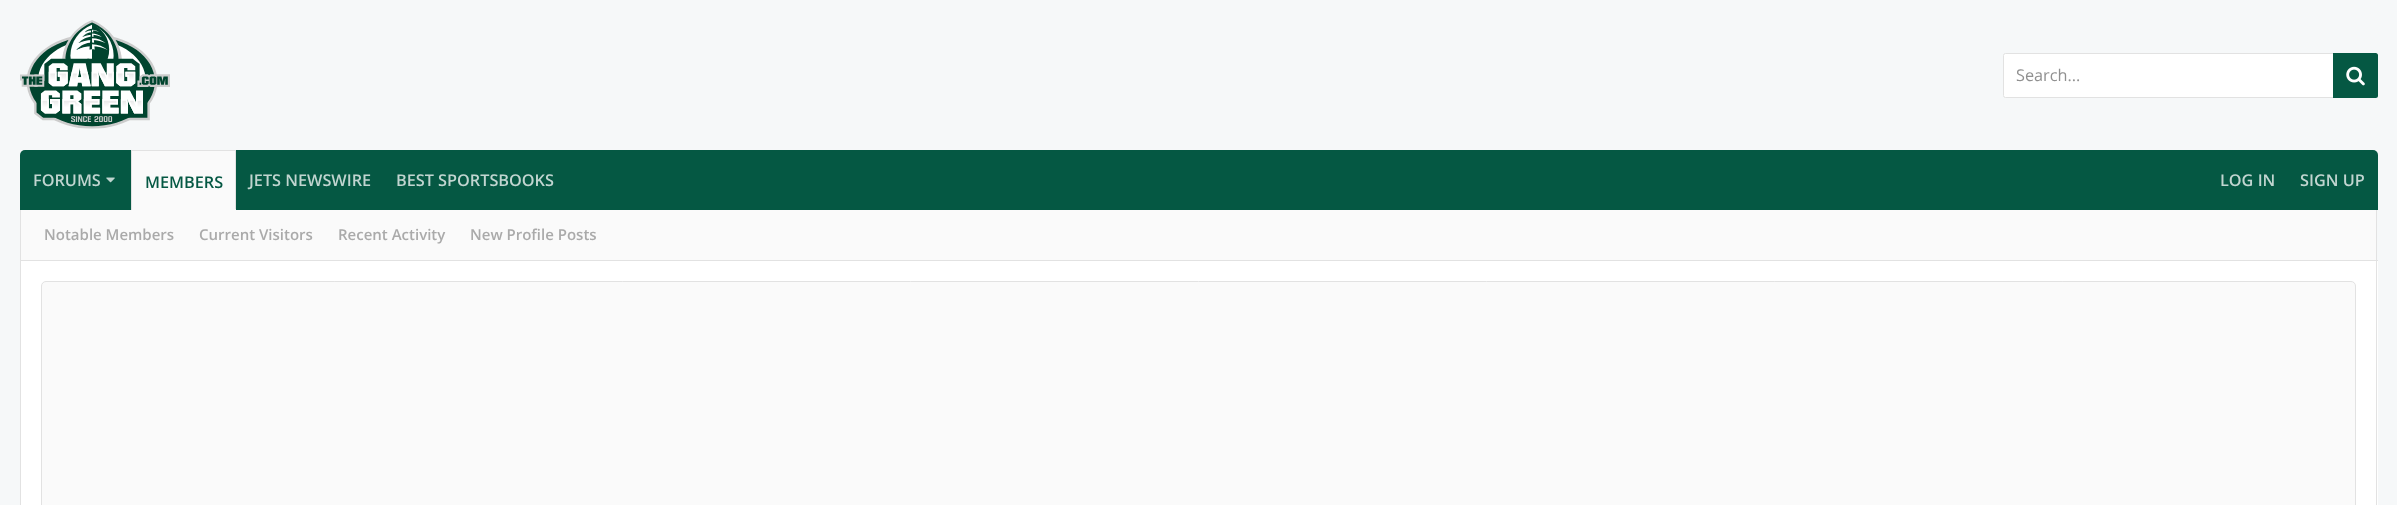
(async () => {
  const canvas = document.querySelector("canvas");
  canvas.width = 2397;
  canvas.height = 505;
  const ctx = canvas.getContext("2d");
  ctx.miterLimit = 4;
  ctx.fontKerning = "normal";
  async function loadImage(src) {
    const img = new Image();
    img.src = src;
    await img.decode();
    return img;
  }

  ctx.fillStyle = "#f6f8f9";
  ctx.fillRect(0, 0, 2397, 505);
  ctx.drawImage(await loadImage("img/1.png"), 20, 20, 150, 109);
  ctx.fillStyle = "#ffffff";
  ctx.beginPath();
  ctx.roundRect(2003.5, 53.5, 374, 44, 2);
  ctx.fill();
  ctx.strokeStyle = "#e2e2e2";
  ctx.stroke();
  ctx.fillStyle = "#055843";
  ctx.beginPath();
  ctx.roundRect(2333, 53, 45, 45, [0, 2.5, 2.5, 0]);
  ctx.fill();
  ctx.drawImage(await loadImage("img/2.png"), 2346, 66, 19, 20);
  ctx.beginPath();
  ctx.roundRect(20, 150, 2358, 60, [5, 5, 0, 0]);
  ctx.fill();
  ctx.drawImage(await loadImage("img/3.png"), 106, 177, 9, 6);
  for (const [x, y, w, h, color] of [
    [132, 151, 103, 58, "#fafafa"],
    [131, 150, 105, 1, "#e2e2e2"],
    [235, 150, 1, 60, "#e2e2e2"],
    [131, 209, 105, 1, "#fafafa"],
    [131, 150, 1, 60, "#e2e2e2"],
    [21, 210, 2355, 50, "#fafafa"],
    [21, 261, 2357, 244, "#ffffff"],
    [2376, 210, 1, 295, "#e2e2e2"],
    [20, 260, 2358, 1, "#e2e2e2"],
    [20, 210, 1, 51, "#e2e2e2"],
    [20, 261, 1, 244, "#e2e2e2"],
  ]) {
    ctx.fillStyle = color;
    ctx.fillRect(x, y, w, h);
  }
  ctx.fillStyle = "#fafafa";
  ctx.beginPath();
  ctx.roundRect(41.5, 281.5, 2314, 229, 4.5);
  ctx.fill();
  ctx.stroke();
  ctx.font = "16.25px Open Sans";
  ctx.fillStyle = "#909090";
  ctx.fillText("Search...", 2016, 81);
  ctx.font = "600 16.25px Open Sans";
  ctx.fillStyle = "#c1d5d0";
  for (const [text, x, y] of [
    ["FORUMS", 33, 186],
    ["JETS NEWSWIRE", 249, 186],
    ["BEST SPORTSBOOKS", 396, 186],
  ]) {
    ctx.fillText(text, x, y);
  }
  ctx.fillStyle = "#055843";
  ctx.fillText("MEMBERS", 145, 188);
  ctx.font = "600 15px Open Sans";
  ctx.fillStyle = "#aaaaaa";
  for (const [text, x, y] of [
    ["Notable Members", 44, 240],
    ["Current Visitors", 199, 240],
    ["Recent Activity", 338, 240],
    ["New Profile Posts", 470, 240],
  ]) {
    ctx.fillText(text, x, y);
  }
  ctx.font = "600 16.25px Open Sans";
  ctx.fillStyle = "#c1d5d0";
  ctx.fillText("LOG IN", 2220, 186);
  ctx.fillText("SIGN UP", 2300, 186);
})();
